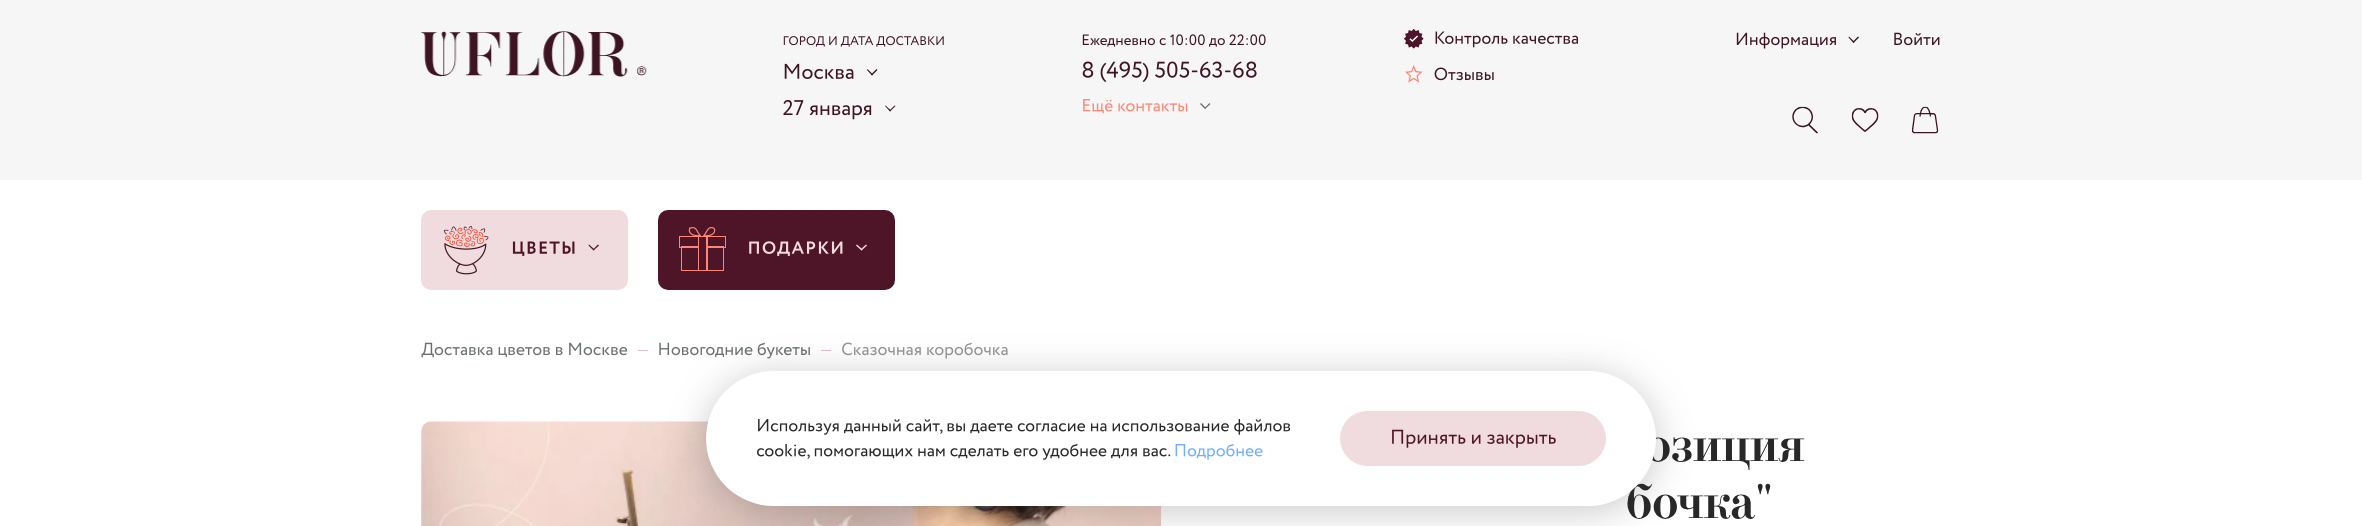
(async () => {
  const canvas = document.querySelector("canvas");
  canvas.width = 2362;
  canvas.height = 526;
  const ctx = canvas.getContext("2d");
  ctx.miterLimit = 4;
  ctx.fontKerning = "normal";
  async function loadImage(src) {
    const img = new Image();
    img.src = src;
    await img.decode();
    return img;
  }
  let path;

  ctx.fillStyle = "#ffffff";
  ctx.fillRect(0, 0, 2362, 526);
  ctx.fillStyle = "#f6f6f6";
  ctx.fillRect(0, 0, 2362, 180);
  ctx.drawImage(await loadImage("img/1.png"), 421, 31, 226, 46);
  ctx.drawImage(await loadImage("img/2.png"), 783, 36, 161, 11);
  ctx.drawImage(await loadImage("img/3.png"), 784, 63, 70, 16);
  ctx.fillStyle = "#3d1522";
  path = new Path2D("M867.5 69L873 74.5L872 75.5L867 70Z");
  ctx.fill(path);
  path = new Path2D("M877.5 70L872 75.5L871 74.5L876.5 69Z");
  ctx.fill(path);
  ctx.drawImage(await loadImage("img/4.png"), 783, 100, 89, 20);
  path = new Path2D("M885.5 105.5L891 110.5L890 111.5L885 106Z");
  ctx.fill(path);
  path = new Path2D("M895.5 106L890 111.5L889.5 110.5L894.5 105.5Z");
  ctx.fill(path);
  ctx.drawImage(await loadImage("img/5.png"), 1082, 34, 184, 13);
  ctx.drawImage(await loadImage("img/6.png"), 1082, 61, 175, 21);
  ctx.drawImage(await loadImage("img/7.png"), 1083, 99, 105, 15);
  ctx.fillStyle = "#6b7170";
  path = new Path2D("M1201 103L1206 108L1205 109L1200 104Z");
  ctx.fill(path);
  path = new Path2D("M1210.5 104L1205 109L1204.5 108L1209.5 103Z");
  ctx.fill(path);
  ctx.drawImage(await loadImage("img/8.png"), 1404, 29, 20, 20);
  ctx.drawImage(await loadImage("img/9.png"), 1435, 31, 143, 17);
  ctx.drawImage(await loadImage("img/10.png"), 1405, 65, 18, 18);
  ctx.drawImage(await loadImage("img/11.png"), 1434, 67, 60, 14);
  ctx.drawImage(await loadImage("img/12.png"), 1736, 32, 100, 17);
  ctx.fillStyle = "#3d1522";
  path = new Path2D("M1849 36.5L1854.5 42L1853.5 43L1848.5 37.5Z");
  ctx.fill(path);
  path = new Path2D("M1859 37.5L1853.5 43L1852.5 42L1858 36.5Z");
  ctx.fill(path);
  ctx.drawImage(await loadImage("img/13.png"), 1894, 32, 46, 14);
  ctx.drawImage(await loadImage("img/14.png"), 1792, 106, 26, 28);
  ctx.drawImage(await loadImage("img/15.png"), 1851, 108, 28, 24);
  ctx.drawImage(await loadImage("img/16.png"), 1911, 106, 28, 28);
  ctx.fillStyle = "#f0dbde";
  ctx.beginPath();
  ctx.roundRect(421, 210, 207, 80, 10);
  ctx.fill();
  ctx.drawImage(await loadImage("img/17.png"), 443, 225, 46, 50);
  ctx.drawImage(await loadImage("img/18.png"), 512, 241, 63, 15);
  ctx.fillStyle = "#4e1528";
  path = new Path2D("M589 244.5L594.5 249.5L593.5 250.5L588.5 245.5Z");
  ctx.fill(path);
  path = new Path2D("M599 245.5L593.5 250.5L593 249.5L598 244.5Z");
  ctx.fill(path);
  ctx.beginPath();
  ctx.roundRect(658, 210, 237, 80, 10);
  ctx.fill();
  ctx.drawImage(await loadImage("img/19.png"), 679, 227, 47, 44);
  ctx.drawImage(await loadImage("img/20.png"), 749, 241, 94, 15);
  ctx.fillStyle = "#f0dbde";
  path = new Path2D("M857 244.5L862.5 249.5L861.5 250.5L856 245.5Z");
  ctx.fill(path);
  path = new Path2D("M867 245.5L861.5 250.5L860.5 249.5L866 244.5Z");
  ctx.fill(path);
  ctx.drawImage(await loadImage("img/26.png"), 659, 342, 151, 17);
  ctx.fillStyle = "#e7bfc4";
  ctx.fillRect(821, 350, 10, 1);
  ctx.drawImage(await loadImage("img/27.png"), 842, 342, 166, 17);
  ctx.drawImage(await loadImage("img/28.png"), 421, 421, 741, 105);
  ctx.fillStyle = "rgba(74, 74, 74, 0.3)";
  ctx.filter = "blur(19px)";
  ctx.beginPath();
  ctx.roundRect(706, 376, 950, 135, 67.5);
  ctx.fill();
  ctx.filter = "none";
  ctx.drawImage(await loadImage("img/25.png"), 421, 342, 207, 16);
  ctx.fillStyle = "#e7bfc4";
  ctx.fillRect(638, 350, 10, 1);
  ctx.font = "47.5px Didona";
  ctx.fillStyle = "#282828";
  ctx.fillText("озиция", 1645, 461);
  ctx.fillText("бочка\"", 1626, 518);
  ctx.fillStyle = "#ffffff";
  ctx.beginPath();
  ctx.roundRect(706, 371, 950, 135, 67.5);
  ctx.fill();
  ctx.fillStyle = "#f0dbde";
  ctx.beginPath();
  ctx.roundRect(1340, 411, 266, 55, 27.5);
  ctx.fill();
  ctx.drawImage(await loadImage("img/24.png"), 1392, 429, 164, 19);
  ctx.drawImage(await loadImage("img/23.png"), 1175, 444, 88, 16);
  ctx.drawImage(await loadImage("img/22.png"), 757, 443, 414, 17);
  ctx.drawImage(await loadImage("img/21.png"), 758, 419, 533, 16);
})();
